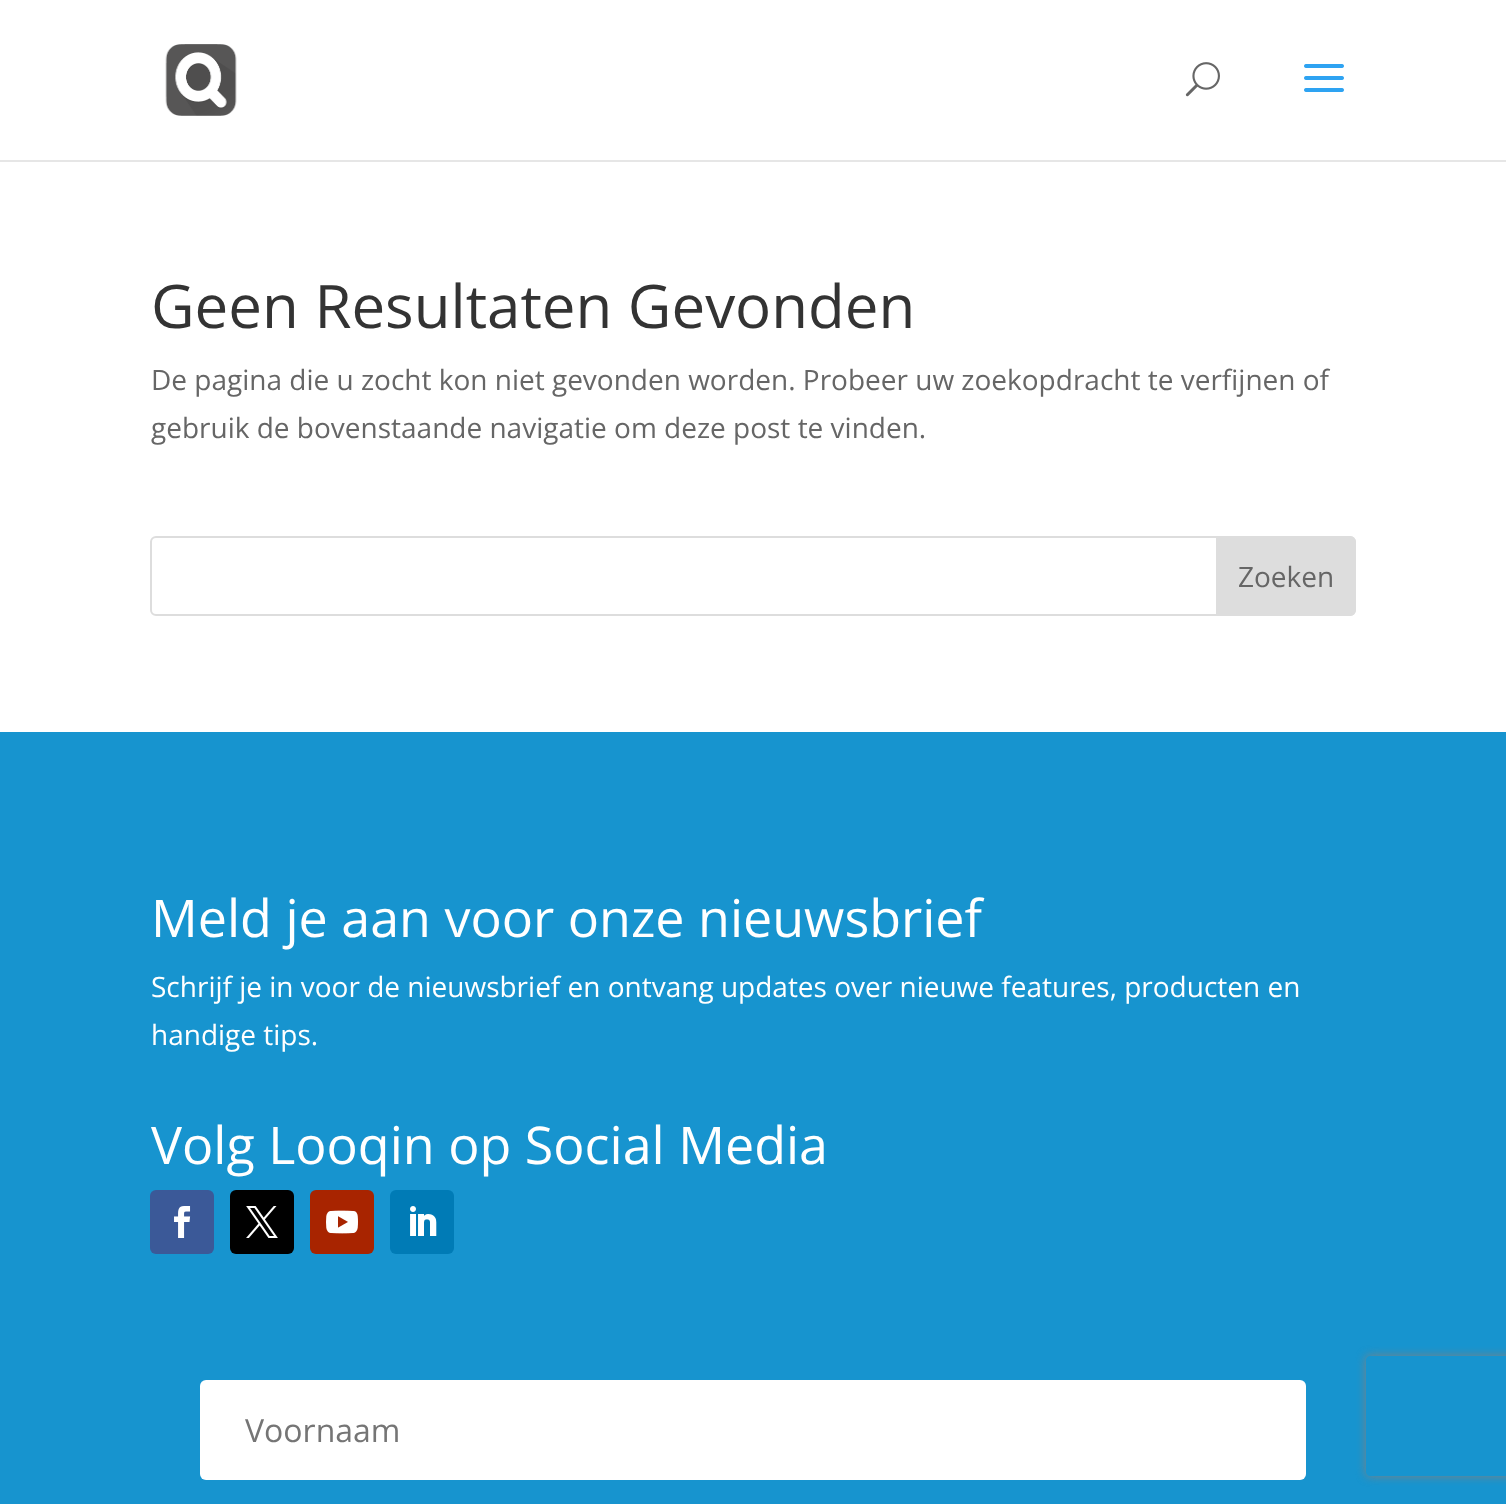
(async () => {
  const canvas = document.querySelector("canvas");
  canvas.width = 1506;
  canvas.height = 1504;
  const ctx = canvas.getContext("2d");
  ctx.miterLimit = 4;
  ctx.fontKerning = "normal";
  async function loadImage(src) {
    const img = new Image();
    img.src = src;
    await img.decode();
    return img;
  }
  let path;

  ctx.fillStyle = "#ffffff";
  ctx.fillRect(0, 0, 1506, 1504);
  ctx.fillStyle = "#e6e6e6";
  ctx.fillRect(0, 160, 1506, 2);
  ctx.drawImage(await loadImage("img/1.png"), 165, 44, 72, 72);
  ctx.drawImage(await loadImage("img/2.png"), 1185, 62, 35, 35);
  ctx.drawImage(await loadImage("img/3.png"), 1304, 64, 40, 28);
  ctx.beginPath();
  ctx.roundRect(151, 537, 1204, 78, 5);
  ctx.strokeStyle = "#dddddd";
  ctx.lineWidth = 2;
  ctx.stroke();
  ctx.fillStyle = "#dddddd";
  ctx.beginPath();
  ctx.roundRect(1217, 537, 138, 78, [0, 5, 5, 0]);
  ctx.fill();
  ctx.stroke();
  ctx.fillStyle = "#1794cf";
  ctx.fillRect(0, 732, 1506, 772);
  ctx.fillStyle = "#3b5998";
  ctx.beginPath();
  ctx.roundRect(150, 1190, 64, 64, 6);
  ctx.fill();
  ctx.drawImage(await loadImage("img/4.png"), 174, 1206, 17, 32);
  ctx.fillStyle = "#000000";
  ctx.beginPath();
  ctx.roundRect(230, 1190, 64, 64, 6);
  ctx.fill();
  ctx.drawImage(await loadImage("img/5.png"), 246, 1206, 32, 32);
  ctx.fillStyle = "#a82400";
  ctx.beginPath();
  ctx.roundRect(310, 1190, 64, 64, 6);
  ctx.fill();
  ctx.drawImage(await loadImage("img/6.png"), 326, 1210, 32, 24);
  ctx.fillStyle = "#007bb6";
  ctx.beginPath();
  ctx.roundRect(390, 1190, 64, 64, 6);
  ctx.fill();
  ctx.drawImage(await loadImage("img/7.png"), 410, 1206, 27, 30);
  ctx.fillStyle = "#ffffff";
  ctx.beginPath();
  ctx.roundRect(200, 1380, 1106, 100, 6);
  ctx.fill();
  ctx.save();
  path = new Path2D("M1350 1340H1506V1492H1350ZM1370 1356H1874C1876 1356 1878 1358 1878 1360V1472C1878 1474 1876 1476 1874 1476H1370C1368 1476 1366 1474 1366 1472V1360C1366 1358 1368 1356 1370 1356Z");
  ctx.clip(path, "evenodd");
  ctx.fillStyle = "#808080";
  ctx.filter = "blur(5px)";
  ctx.beginPath();
  ctx.roundRect(1366, 1356, 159, 120, 4);
  ctx.fill();
  ctx.filter = "none";
  ctx.restore();
  ctx.font = "60px Open Sans";
  ctx.fillStyle = "#333333";
  ctx.fillText("Geen Resultaten Gevonden", 151, 328);
  ctx.font = "28px Open Sans";
  ctx.fillStyle = "#666666";
  for (const [text, x, y] of [
    ["De pagina die u zocht kon niet gevonden worden. Probeer uw zoekopdracht te verfijnen of", 151, 390],
    ["gebruik de bovenstaande navigatie om deze post te vinden.", 151, 438],
    ["Zoeken", 1238, 587],
  ]) {
    ctx.fillText(text, x, y);
  }
  ctx.font = "52px Open Sans";
  ctx.fillStyle = "#ffffff";
  ctx.fillText("Meld je aan voor onze nieuwsbrief", 151, 937);
  ctx.font = "28px Open Sans";
  ctx.fillText("Schrijf je in voor de nieuwsbrief en ontvang updates over nieuwe features, producten en", 151, 997);
  ctx.fillText("handige tips.", 151, 1045);
  ctx.font = "52px Open Sans";
  ctx.fillText("Volg Looqin op Social Media", 151, 1164);
  ctx.font = "32px Open Sans";
  ctx.fillStyle = "#757575";
  ctx.fillText("Voornaam", 245, 1442);
})();
